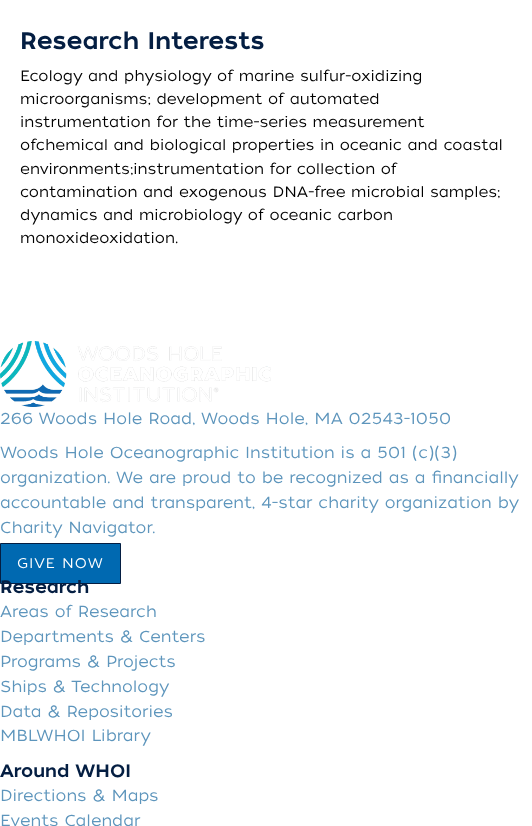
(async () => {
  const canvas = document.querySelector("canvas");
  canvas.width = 532;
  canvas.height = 826;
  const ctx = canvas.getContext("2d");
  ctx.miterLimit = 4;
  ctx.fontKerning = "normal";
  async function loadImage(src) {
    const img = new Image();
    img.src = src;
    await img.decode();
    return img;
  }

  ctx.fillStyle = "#ffffff";
  ctx.fillRect(0, 0, 532, 826);
  ctx.drawImage(await loadImage("img/1.png"), 0, 341, 271, 66);
  ctx.fillStyle = "#0069b1";
  ctx.beginPath();
  ctx.rect(0.5, 543.5, 120, 40);
  ctx.fill();
  ctx.strokeStyle = "#041e42";
  ctx.stroke();
  ctx.font = "500 24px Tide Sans";
  ctx.fillStyle = "#041e42";
  ctx.fillText("Research Interests", 20, 49);
  ctx.font = "300 15px Tide Sans";
  ctx.fillStyle = "#000000";
  for (const [text, x, y] of [
    ["Ecology and physiology of marine sulfur-oxidizing", 20, 81],
    ["microorganisms; development of automated", 20, 104],
    ["instrumentation for the time-series measurement", 20, 127],
    ["ofchemical and biological properties in oceanic and coastal", 20, 150],
    ["environments;instrumentation for collection of", 20, 174],
    ["contamination and exogenous DNA-free microbial samples;", 20, 197],
    ["dynamics and microbiology of oceanic carbon", 20, 220],
    ["monoxideoxidation.", 20, 243],
  ]) {
    ctx.fillText(text, x, y);
  }
  ctx.font = "300 16px Tide Sans";
  ctx.fillStyle = "#5d95bc";
  for (const [text, x, y] of [
    ["266 Woods Hole Road, Woods Hole, MA 02543-1050", 0, 424],
    ["Woods Hole Oceanographic Institution is a 501 (c)(3)", 0, 458],
    ["organization. We are proud to be recognized as a financially", 0, 483],
    ["accountable and transparent, 4-star charity organization by", 0, 508],
    ["Charity Navigator.", 0, 533],
  ]) {
    ctx.fillText(text, x, y);
  }
  ctx.letterSpacing = "1px";
  ctx.font = "300 14px Tide Sans";
  ctx.fillStyle = "#ffffff";
  ctx.fillText("GIVE NOW", 17, 568);
  ctx.letterSpacing = "0px";
  ctx.font = "500 18px Tide Sans";
  ctx.fillStyle = "#041e42";
  ctx.fillText("Research", 0, 593);
  ctx.font = "300 16px Tide Sans";
  ctx.fillStyle = "#5d95bc";
  for (const [text, x, y] of [
    ["Areas of Research", 0, 617],
    ["Departments & Centers", 0, 642],
    ["Programs & Projects", 0, 667],
    ["Ships & Technology", 0, 692],
    ["Data & Repositories", 0, 717],
    ["MBLWHOI Library", 0, 741],
  ]) {
    ctx.fillText(text, x, y);
  }
  ctx.font = "500 18px Tide Sans";
  ctx.fillStyle = "#041e42";
  ctx.fillText("Around WHOI", 0, 777);
  ctx.font = "300 16px Tide Sans";
  ctx.fillStyle = "#5d95bc";
  ctx.fillText("Directions & Maps", 0, 801);
  ctx.fillText("Events Calendar", 0, 826);
})();
